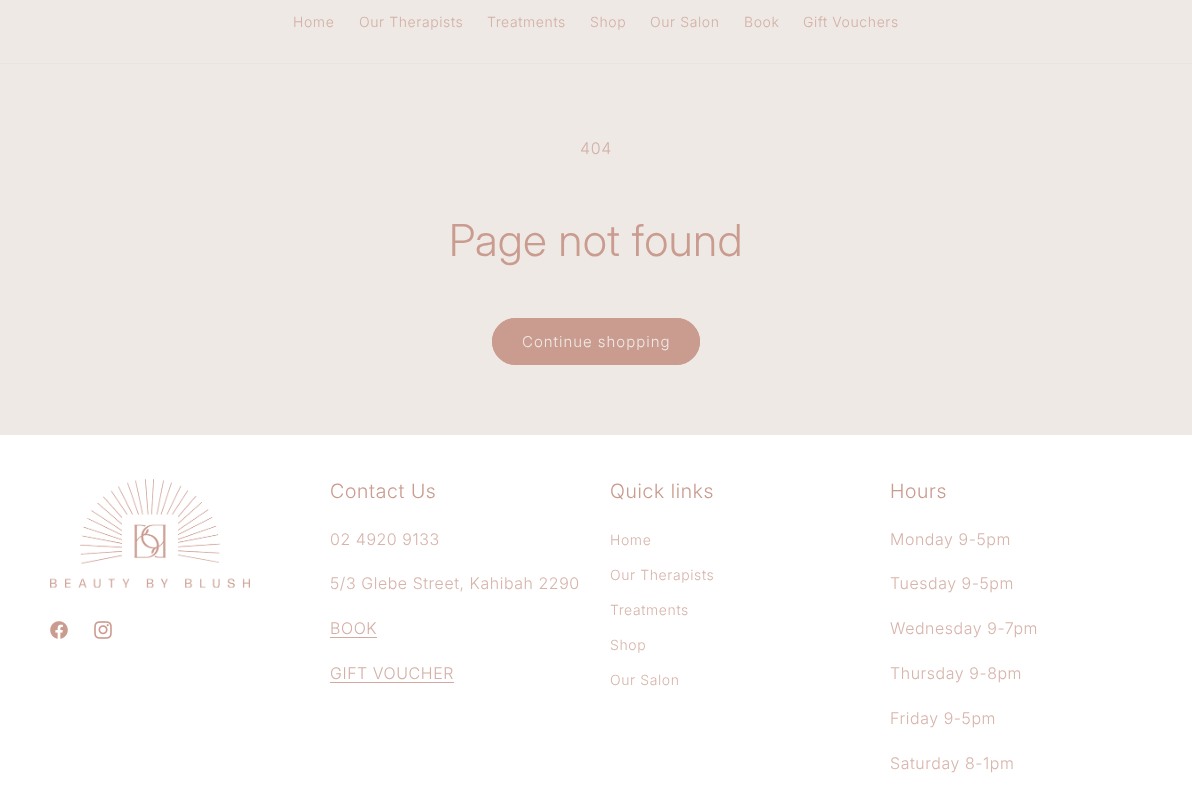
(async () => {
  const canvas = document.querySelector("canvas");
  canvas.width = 1192;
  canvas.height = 808;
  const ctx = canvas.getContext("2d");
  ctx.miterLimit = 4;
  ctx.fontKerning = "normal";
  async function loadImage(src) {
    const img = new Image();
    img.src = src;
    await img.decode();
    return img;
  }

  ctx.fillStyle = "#eee9e5";
  ctx.fillRect(0, 0, 1192, 808);
  ctx.fillStyle = "#ebe3de";
  ctx.fillRect(0, 63, 1192, 1);
  ctx.fillStyle = "#ca9b8f";
  ctx.beginPath();
  ctx.roundRect(492, 318, 208, 47, 23.5);
  ctx.fill();
  ctx.beginPath();
  ctx.roundRect(492.5, 318.5, 207, 46, 23);
  ctx.strokeStyle = "#ca9b8f";
  ctx.stroke();
  ctx.fillStyle = "#ffffff";
  ctx.fillRect(0, 435, 1192, 373);
  ctx.drawImage(await loadImage("img/1.png"), 50, 479, 200, 109);
  ctx.drawImage(await loadImage("img/2.png"), 50, 621, 18, 18);
  ctx.drawImage(await loadImage("img/3.png"), 94, 621, 18, 18);
  ctx.fillStyle = "#d2aaa0";
  ctx.fillRect(330, 637, 47, 1);
  ctx.fillRect(330, 682, 124, 1);
  ctx.letterSpacing = "0.6px";
  ctx.font = "300 14px Inter";
  ctx.fillStyle = "#d3afa5";
  for (const [text, x, y] of [
    ["Home", 293, 27],
    ["Our Therapists", 359, 27],
    ["Treatments", 487, 27],
    ["Shop", 590, 27],
    ["Our Salon", 650, 27],
    ["Book", 744, 27],
    ["Gift Vouchers", 803, 27],
  ]) {
    ctx.fillText(text, x, y);
  }
  ctx.font = "300 16px Inter";
  ctx.fillText("404", 580, 154);
  ctx.letterSpacing = "0.7px";
  ctx.font = "300 44px 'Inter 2'";
  ctx.fillStyle = "#ca9b8f";
  ctx.fillText("Page not found", 449, 256);
  ctx.letterSpacing = "1px";
  ctx.font = "300 15px 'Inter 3'";
  ctx.fillStyle = "#eee9e5";
  ctx.fillText("Continue shopping", 522, 347);
  ctx.letterSpacing = "0.7px";
  ctx.font = "300 19.75px 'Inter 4'";
  ctx.fillStyle = "#ca9b8f";
  ctx.fillText("Contact Us", 330, 498);
  ctx.letterSpacing = "0.6px";
  ctx.font = "300 16px 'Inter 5'";
  ctx.fillStyle = "#d7b4ab";
  ctx.fillText("02 4920 9133", 330, 545);
  ctx.fillText("5/3 Glebe Street, Kahibah 2290", 330, 589);
  ctx.fillStyle = "#d3afa5";
  ctx.fillText("BOOK", 330, 634);
  ctx.fillText("GIFT VOUCHER", 330, 679);
  ctx.letterSpacing = "0.7px";
  ctx.font = "300 19.75px 'Inter 4'";
  ctx.fillStyle = "#ca9b8f";
  ctx.fillText("Quick links", 610, 498);
  ctx.letterSpacing = "0.6px";
  ctx.font = "300 14px Inter";
  ctx.fillStyle = "#d7b4ab";
  for (const [text, x, y] of [
    ["Home", 610, 545],
    ["Our Therapists", 610, 580],
    ["Treatments", 610, 615],
    ["Shop", 610, 650],
    ["Our Salon", 610, 685],
  ]) {
    ctx.fillText(text, x, y);
  }
  ctx.letterSpacing = "0.7px";
  ctx.font = "300 19.75px 'Inter 4'";
  ctx.fillStyle = "#ca9b8f";
  ctx.fillText("Hours", 890, 498);
  ctx.letterSpacing = "0.6px";
  ctx.font = "300 16px 'Inter 5'";
  ctx.fillStyle = "#d7b4ab";
  for (const [text, x, y] of [
    ["Monday 9-5pm", 890, 545],
    ["Tuesday 9-5pm", 890, 589],
    ["Wednesday 9-7pm", 890, 634],
    ["Thursday 9-8pm", 890, 679],
    ["Friday 9-5pm", 890, 724],
    ["Saturday 8-1pm", 890, 769],
  ]) {
    ctx.fillText(text, x, y);
  }
})();
